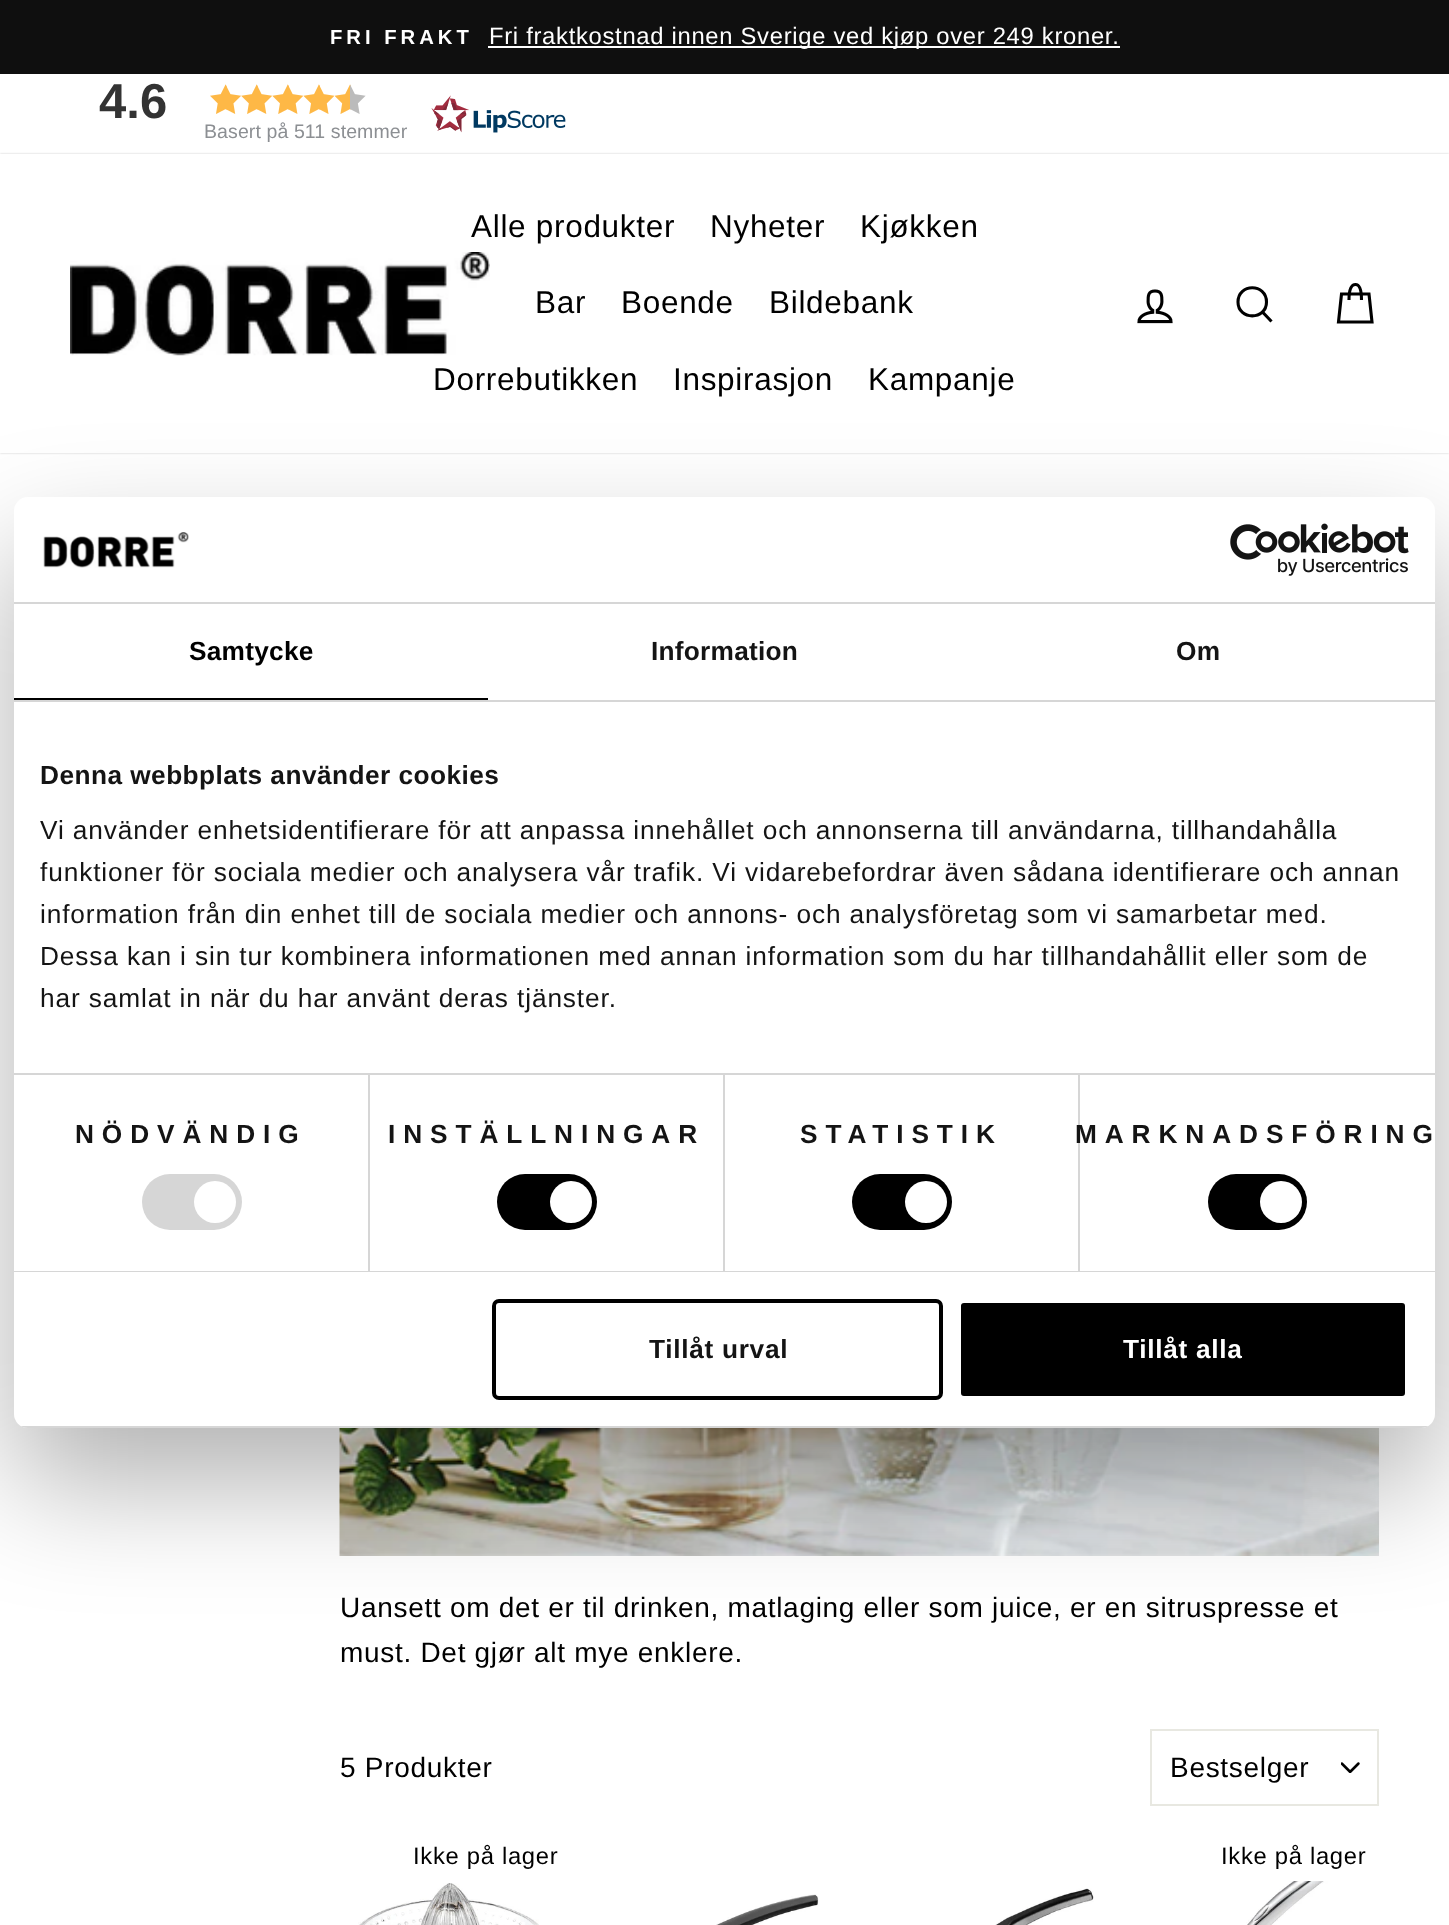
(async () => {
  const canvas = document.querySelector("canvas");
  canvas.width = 1449;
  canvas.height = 1925;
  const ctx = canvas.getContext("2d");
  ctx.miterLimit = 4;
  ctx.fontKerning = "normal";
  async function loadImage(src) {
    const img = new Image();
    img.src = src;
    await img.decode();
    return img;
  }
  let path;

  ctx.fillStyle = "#ffffff";
  ctx.fillRect(0, 0, 1449, 1925);
  ctx.fillStyle = "#0f0f0f";
  ctx.fillRect(0, 0, 1449, 74);
  ctx.fillStyle = "#ffffff";
  ctx.fillRect(488, 46, 632, 2);
  ctx.drawImage(await loadImage("img/1.png"), 210, 84, 356, 49);
  ctx.save();
  path = new Path2D("M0 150H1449V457H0ZM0 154H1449V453H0Z");
  ctx.clip(path, "evenodd");
  ctx.fillStyle = "rgba(0, 0, 0, 0.2)";
  ctx.filter = "blur(1px)";
  ctx.beginPath();
  ctx.rect(0, 154, 1449, 299);
  ctx.fill();
  ctx.filter = "none";
  ctx.restore();
  ctx.drawImage(await loadImage("img/2.png"), 70, 252, 420, 104);
  ctx.drawImage(await loadImage("img/3.png"), 1137, 289, 36, 35);
  path = new Path2D("M1266.5 302C1266.5 320.5 1238 320.5 1238 302C1238 283 1266.5 283 1266.5 302ZM1271.5 321.5L1262.5 312");
  ctx.strokeStyle = "#000000";
  ctx.lineWidth = 3.1;
  ctx.stroke(path);
  path = new Path2D("M1349 300C1349 288 1352 284.5 1355.5 284.5C1358.5 284.5 1361.5 288 1361.5 300M1341.5 294H1369L1372 322H1338.5Z");
  ctx.stroke(path);
  ctx.drawImage(await loadImage("img/4.png"), 339, 1428, 1040, 128);
  ctx.drawImage(await loadImage("img/5.png"), 1341, 1762, 19, 11);
  ctx.strokeStyle = "#e8e8e1";
  ctx.lineWidth = 2;
  ctx.strokeRect(1151, 1730, 227, 75);
  ctx.drawImage(await loadImage("img/6.png"), 358, 1883, 181, 42);
  ctx.drawImage(await loadImage("img/7.png"), 1246, 1881, 99, 44);
  ctx.drawImage(await loadImage("img/8.png"), 716, 1894, 103, 31);
  ctx.drawImage(await loadImage("img/9.png"), 995, 1888, 99, 37);
  ctx.fillStyle = "rgba(0, 0, 0, 0.3)";
  ctx.filter = "blur(59.5px)";
  ctx.beginPath();
  ctx.roundRect(14, 553, 1421, 931, 14);
  ctx.fill();
  ctx.filter = "none";
  ctx.fillStyle = "#ffffff";
  ctx.beginPath();
  ctx.roundRect(14, 497, 1421, 931, 14);
  ctx.fill();
  ctx.fillStyle = "#d6d6d6";
  ctx.fillRect(14, 602, 1421, 2);
  ctx.drawImage(await loadImage("img/10.png"), 43, 532, 146, 36);
  ctx.drawImage(await loadImage("img/11.png"), 1230, 523, 179, 53);
  for (const [x, y, w, h, color] of [
    [14, 700, 1421, 2, "#d6d6d6"],
    [14, 698, 474, 2, "#000000"],
    [14, 1073, 1421, 2, "#d6d6d6"],
    [14, 1271, 1421, 1, "#d6d6d6"],
    [368, 1075, 2, 196, "#d6d6d6"],
  ]) {
    ctx.fillStyle = color;
    ctx.fillRect(x, y, w, h);
  }
  ctx.beginPath();
  ctx.roundRect(142, 1174, 100, 56, 28);
  ctx.fill();
  ctx.fillStyle = "#ffffff";
  ctx.beginPath();
  ctx.arc(215, 1202, 21, 0, Math.PI * 2);
  ctx.fill();
  ctx.fillStyle = "#d6d6d6";
  ctx.fillRect(723, 1075, 2, 196);
  ctx.fillStyle = "#000000";
  ctx.beginPath();
  ctx.roundRect(497, 1174, 100, 56, 28);
  ctx.fill();
  ctx.fillStyle = "#ffffff";
  ctx.beginPath();
  ctx.arc(571, 1202, 21, 0, Math.PI * 2);
  ctx.fill();
  ctx.fillStyle = "#d6d6d6";
  ctx.fillRect(1078, 1075, 2, 196);
  ctx.fillStyle = "#000000";
  ctx.beginPath();
  ctx.roundRect(852, 1174, 100, 56, 28);
  ctx.fill();
  ctx.fillStyle = "#ffffff";
  ctx.beginPath();
  ctx.arc(926, 1202, 21, 0, Math.PI * 2);
  ctx.fill();
  ctx.fillStyle = "#000000";
  ctx.beginPath();
  ctx.roundRect(1208, 1174, 99, 56, 28);
  ctx.fill();
  ctx.fillStyle = "#ffffff";
  ctx.beginPath();
  ctx.arc(1281, 1202, 21, 0, Math.PI * 2);
  ctx.fill();
  ctx.save();
  ctx.beginPath();
  ctx.roundRect(14, 497, 1421, 931, 14);
  ctx.clip();
  ctx.fillStyle = "#d6d6d6";
  ctx.fillRect(14, 1426, 1421, 2);
  ctx.restore();
  ctx.beginPath();
  ctx.roundRect(494, 1301, 447, 97, 5);
  ctx.strokeStyle = "#000000";
  ctx.lineWidth = 4;
  ctx.stroke();
  ctx.fillStyle = "#000000";
  ctx.beginPath();
  ctx.roundRect(959, 1301, 448, 97, 5);
  ctx.fill();
  ctx.strokeStyle = "#ffffff";
  ctx.stroke();
  ctx.letterSpacing = "4px";
  ctx.font = "bold 20.25px Arimo";
  ctx.fillStyle = "#ffffff";
  ctx.fillText("FRI FRAKT", 330, 44);
  ctx.letterSpacing = "0.7px";
  ctx.font = "23.8px Arimo";
  ctx.fillText("Fri fraktkostnad innen Sverige ved kjøp over 249 kroner.", 489, 44);
  ctx.letterSpacing = "0.1px";
  ctx.font = "bold 49px Liberation Sans";
  ctx.fillStyle = "#333333";
  ctx.fillText("4.6", 99, 118);
  ctx.font = "19.5px Liberation Sans";
  ctx.fillStyle = "#8c8f93";
  ctx.fillText("Basert på 511 stemmer", 204, 138);
  ctx.letterSpacing = "0.7px";
  ctx.font = "31.5px Arimo";
  ctx.fillStyle = "#000000";
  for (const [text, x, y] of [
    ["Alle produkter", 471, 237],
    ["Nyheter", 710, 237],
    ["Kjøkken", 860, 237],
    ["Bar", 535, 313],
    ["Boende", 621, 313],
    ["Bildebank", 769, 313],
    ["Dorrebutikken", 433, 390],
    ["Inspirasjon", 673, 390],
    ["Kampanje", 868, 390],
  ]) {
    ctx.fillText(text, x, y);
  }
  ctx.font = "28px Arimo";
  for (const [text, x, y] of [
    ["Uansett om det er til drinken, matlaging eller som juice, er en sitruspresse et", 340, 1617],
    ["must. Det gjør alt mye enklere.", 340, 1662],
    ["5 Produkter", 340, 1777],
    ["Bestselger", 1170, 1777],
  ]) {
    ctx.fillText(text, x, y);
  }
  ctx.font = "23.8px Arimo";
  ctx.fillText("Ikke på lager", 413, 1864);
  ctx.fillText("Ikke på lager", 1221, 1864);
  ctx.letterSpacing = "0.25px";
  ctx.font = "bold 26.25px Liberation Sans";
  ctx.fillText("Samtycke", 189, 660);
  ctx.fillStyle = "#141414";
  ctx.fillText("Information", 651, 660);
  ctx.fillText("Om", 1176, 660);
  ctx.letterSpacing = "0.45px";
  ctx.fillText("Denna webbplats använder cookies", 40, 784);
  ctx.letterSpacing = "0.88px";
  ctx.font = "26.25px Liberation Sans";
  for (const [text, x, y] of [
    ["Vi använder enhetsidentifierare för att anpassa innehållet och annonserna till användarna, tillhandahålla", 40, 839],
    ["funktioner för sociala medier och analysera vår trafik. Vi vidarebefordrar även sådana identifierare och annan", 40, 881],
    ["information från din enhet till de sociala medier och annons- och analysföretag som vi samarbetar med.", 40, 923],
    ["Dessa kan i sin tur kombinera informationen med annan information som du har tillhandahållit eller som de", 40, 965],
    ["har samlat in när du har använt deras tjänster.", 40, 1007],
  ]) {
    ctx.fillText(text, x, y);
  }
  ctx.letterSpacing = "7.9px";
  ctx.font = "bold 26.25px Liberation Sans";
  for (const [text, x, y] of [
    ["NÖDVÄNDIG", 75, 1143],
    ["INSTÄLLNINGAR", 388, 1143],
    ["STATISTIK", 800, 1143],
    ["MARKNADSFÖRING", 1075, 1143],
  ]) {
    ctx.fillText(text, x, y);
  }
  ctx.letterSpacing = "0.7px";
  ctx.fillText("Tillåt urval", 649, 1358);
  ctx.fillStyle = "#ffffff";
  ctx.fillText("Tillåt alla", 1123, 1358);
})();
